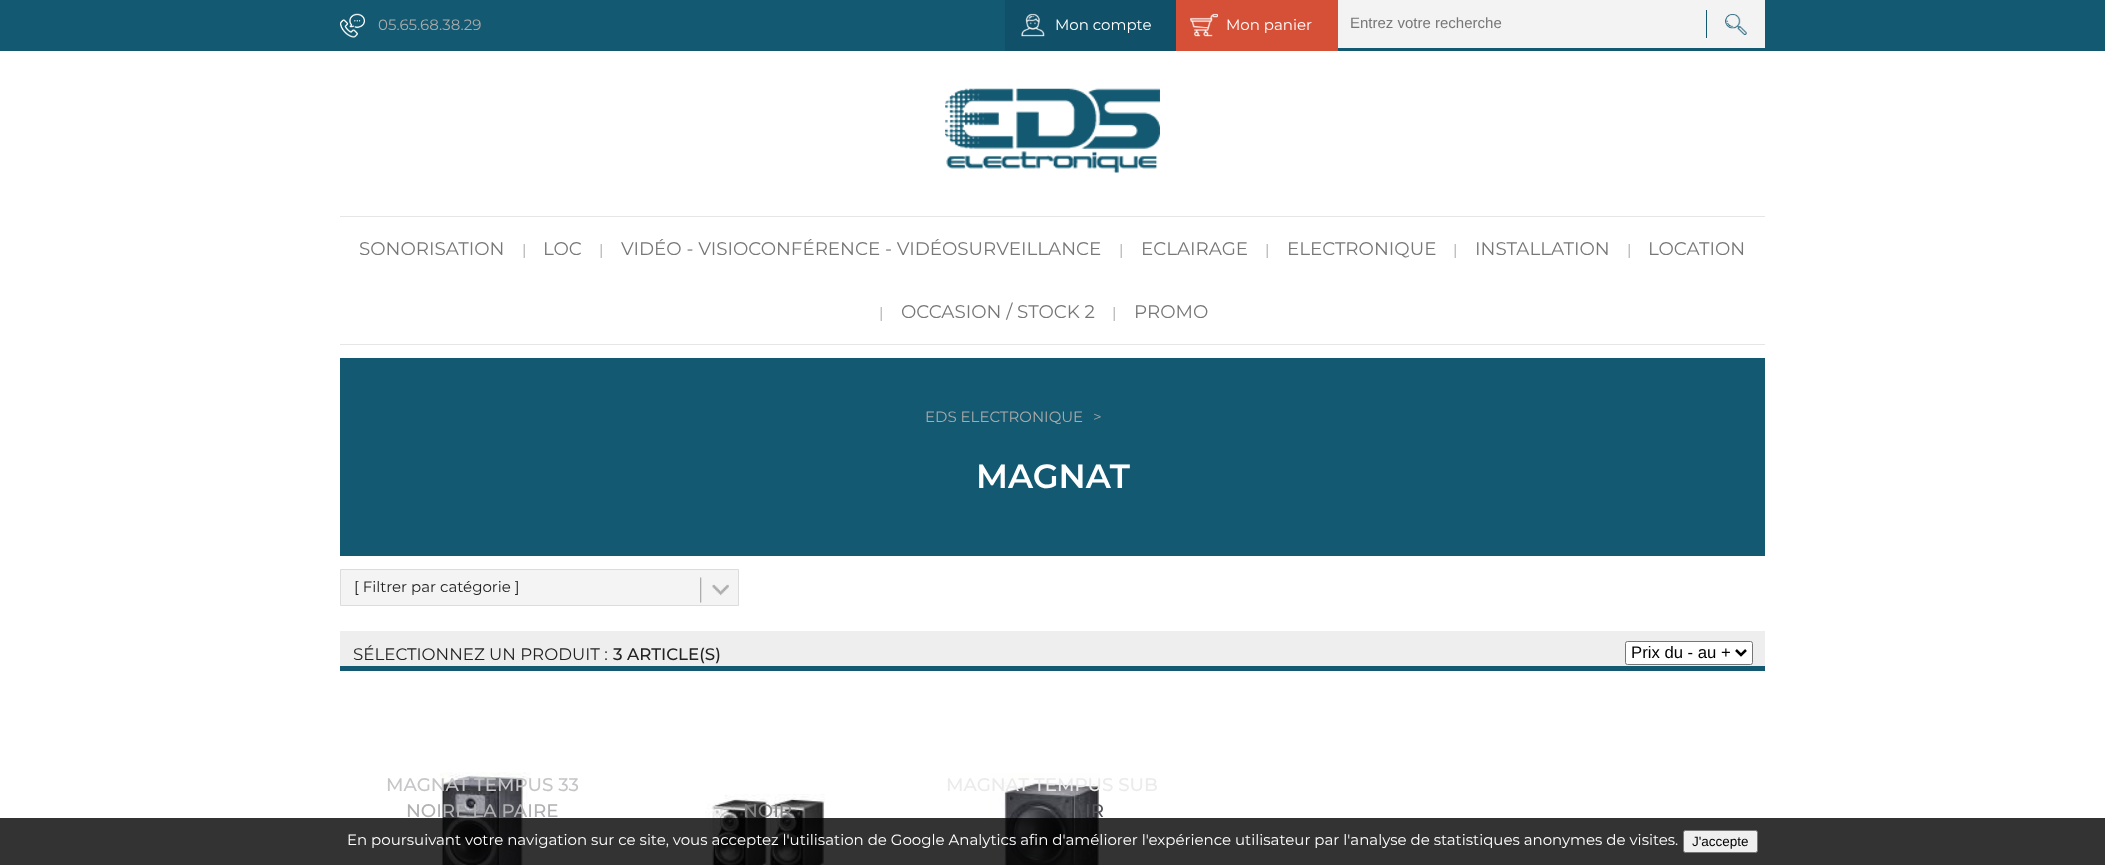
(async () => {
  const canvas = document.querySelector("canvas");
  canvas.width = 2105;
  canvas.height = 865;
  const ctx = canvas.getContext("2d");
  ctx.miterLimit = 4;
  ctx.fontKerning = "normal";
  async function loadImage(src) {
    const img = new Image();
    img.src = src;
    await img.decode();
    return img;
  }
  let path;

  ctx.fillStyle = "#ffffff";
  ctx.fillRect(0, 0, 2105, 865);
  ctx.fillStyle = "#135972";
  ctx.fillRect(0, 0, 2105, 51);
  ctx.drawImage(await loadImage("img/1.png"), 340, 13, 25, 25);
  ctx.fillStyle = "#105069";
  ctx.fillRect(1005, 0, 171, 51);
  ctx.drawImage(await loadImage("img/2.png"), 1021, 13, 24, 24);
  ctx.fillStyle = "#d65037";
  ctx.fillRect(1176, 0, 162, 51);
  ctx.drawImage(await loadImage("img/3.png"), 1190, 13, 28, 24);
  ctx.fillStyle = "#f3f3f3";
  ctx.fillRect(1338, 0, 427, 48);
  ctx.drawImage(await loadImage("img/4.png"), 1725, 14, 22, 21);
  ctx.fillStyle = "#135972";
  ctx.fillRect(1706, 10, 1, 28);
  ctx.drawImage(await loadImage("img/5.png"), 945, 88, 215, 85);
  for (const [x, y, w, h, color] of [
    [340, 216, 1425, 1, "#e6e6e6"],
    [340, 344, 1425, 1, "#e6e6e6"],
    [340, 358, 1425, 198, "#135972"],
  ]) {
    ctx.fillStyle = color;
    ctx.fillRect(x, y, w, h);
  }
  ctx.fillStyle = "#f4f4f4";
  ctx.beginPath();
  ctx.rect(340.5, 569.5, 398, 36);
  ctx.fill();
  ctx.strokeStyle = "#dcdcdc";
  ctx.stroke();
  ctx.drawImage(await loadImage("img/6.png"), 700, 577, 29, 26);
  ctx.fillStyle = "#eeeeee";
  ctx.fillRect(340, 631, 1425, 35);
  ctx.fillStyle = "#135972";
  ctx.fillRect(340, 666, 1425, 5);
  ctx.fillStyle = "#ffffff";
  ctx.beginPath();
  ctx.roundRect(1625.5, 641.5, 127, 23, 2);
  ctx.fill();
  ctx.strokeStyle = "#767676";
  ctx.stroke();
  path = new Path2D("M1736 650L1741 655L1746 650");
  ctx.strokeStyle = "#000000";
  ctx.lineWidth = 2.5;
  ctx.stroke(path);
  ctx.drawImage(await loadImage("img/7.png"), 440, 772, 90, 93);
  ctx.drawImage(await loadImage("img/8.png"), 705, 794, 120, 71);
  ctx.drawImage(await loadImage("img/9.png"), 990, 773, 110, 92);
  ctx.fillStyle = "rgba(0, 0, 0, 0.8)";
  ctx.fillRect(0, 818, 2105, 47);
  ctx.fillStyle = "#efefef";
  ctx.beginPath();
  ctx.roundRect(1683.5, 830.5, 74, 22, 2);
  ctx.fill();
  ctx.strokeStyle = "#767676";
  ctx.lineWidth = 1;
  ctx.stroke();
  ctx.font = "15px Montserrat";
  ctx.fillStyle = "#aaaaaa";
  ctx.fillText("05.65.68.38.29", 378, 30);
  ctx.fillStyle = "#ffffff";
  ctx.fillText("Mon compte", 1055, 30);
  ctx.fillText("Mon panier", 1226, 30);
  ctx.font = "15px Liberation Sans";
  ctx.fillStyle = "#777777";
  ctx.fillText("Entrez votre recherche", 1350, 28);
  ctx.font = "18.3px Montserrat";
  ctx.fillText("SONORISATION", 359, 255);
  ctx.font = "15px Montserrat";
  ctx.fillStyle = "#aaaaaa";
  ctx.fillText("|", 522, 255);
  ctx.font = "18.3px Montserrat";
  ctx.fillStyle = "#777777";
  ctx.fillText("LOC", 543, 255);
  ctx.font = "15px Montserrat";
  ctx.fillStyle = "#aaaaaa";
  ctx.fillText("|", 599, 255);
  ctx.font = "18.3px Montserrat";
  ctx.fillStyle = "#777777";
  ctx.fillText("VIDÉO - VISIOCONFÉRENCE - VIDÉOSURVEILLANCE", 621, 255);
  ctx.font = "15px Montserrat";
  ctx.fillStyle = "#aaaaaa";
  ctx.fillText("|", 1119, 255);
  ctx.font = "18.3px Montserrat";
  ctx.fillStyle = "#777777";
  ctx.fillText("ECLAIRAGE", 1141, 255);
  ctx.font = "15px Montserrat";
  ctx.fillStyle = "#aaaaaa";
  ctx.fillText("|", 1265, 255);
  ctx.font = "18.3px Montserrat";
  ctx.fillStyle = "#777777";
  ctx.fillText("ELECTRONIQUE", 1287, 255);
  ctx.font = "15px Montserrat";
  ctx.fillStyle = "#aaaaaa";
  ctx.fillText("|", 1453, 255);
  ctx.font = "18.3px Montserrat";
  ctx.fillStyle = "#777777";
  ctx.fillText("INSTALLATION", 1475, 255);
  ctx.font = "15px Montserrat";
  ctx.fillStyle = "#aaaaaa";
  ctx.fillText("|", 1627, 255);
  ctx.font = "18.3px Montserrat";
  ctx.fillStyle = "#777777";
  ctx.fillText("LOCATION", 1648, 255);
  ctx.font = "15px Montserrat";
  ctx.fillStyle = "#aaaaaa";
  ctx.fillText("|", 879, 318);
  ctx.font = "18.3px Montserrat";
  ctx.fillStyle = "#777777";
  ctx.fillText("OCCASION / STOCK 2", 901, 318);
  ctx.font = "15px Montserrat";
  ctx.fillStyle = "#aaaaaa";
  ctx.fillText("|", 1112, 318);
  ctx.font = "18.3px Montserrat";
  ctx.fillStyle = "#777777";
  ctx.fillText("PROMO", 1134, 318);
  ctx.font = "15px Montserrat";
  ctx.fillStyle = "#aaaaaa";
  ctx.fillText("EDS ELECTRONIQUE", 925, 422);
  ctx.fillText(">", 1093, 422);
  ctx.font = "600 33.5px Montserrat";
  ctx.fillStyle = "#ffffff";
  ctx.fillText("MAGNAT", 976, 488);
  ctx.font = "15px Montserrat";
  ctx.fillStyle = "#222222";
  ctx.fillText("[ Filtrer par catégorie ]", 354, 592);
  ctx.font = "16.7px Montserrat";
  ctx.fillText("SÉLECTIONNEZ UN PRODUIT :", 353, 660);
  ctx.font = "500 16.7px Montserrat";
  ctx.fillText("3 ARTICLE(S)", 613, 660);
  ctx.font = "16.7px Liberation Sans";
  ctx.fillStyle = "#000000";
  ctx.fillText("Prix du - au +", 1631, 658);
  ctx.font = "500 18.3px Montserrat";
  ctx.fillStyle = "#c6c6c8";
  ctx.fillText("MAGNAT TEMPUS 33", 386, 791);
  ctx.fillStyle = "#b1b1b4";
  ctx.fillText("NOIRE LA PAIRE", 406, 817);
  ctx.fillStyle = "#828283";
  ctx.fillText("NOIR", 743, 817);
  ctx.fillStyle = "#ebebec";
  ctx.fillText("MAGNAT TEMPUS SUB", 946, 791);
  ctx.fillStyle = "#535459";
  ctx.fillText("IR", 1085, 817);
  ctx.font = "15px Montserrat";
  ctx.fillStyle = "#ffffff";
  ctx.fillText("En poursuivant votre navigation sur ce site, vous acceptez l'utilisation de Google Analytics afin d'améliorer l'expérience utilisateur par l'analyse de statistiques anonymes de visites.", 347, 845);
  ctx.font = "13.5px Liberation Sans";
  ctx.fillStyle = "#000000";
  ctx.fillText("J'accepte", 1692, 846);
})();
